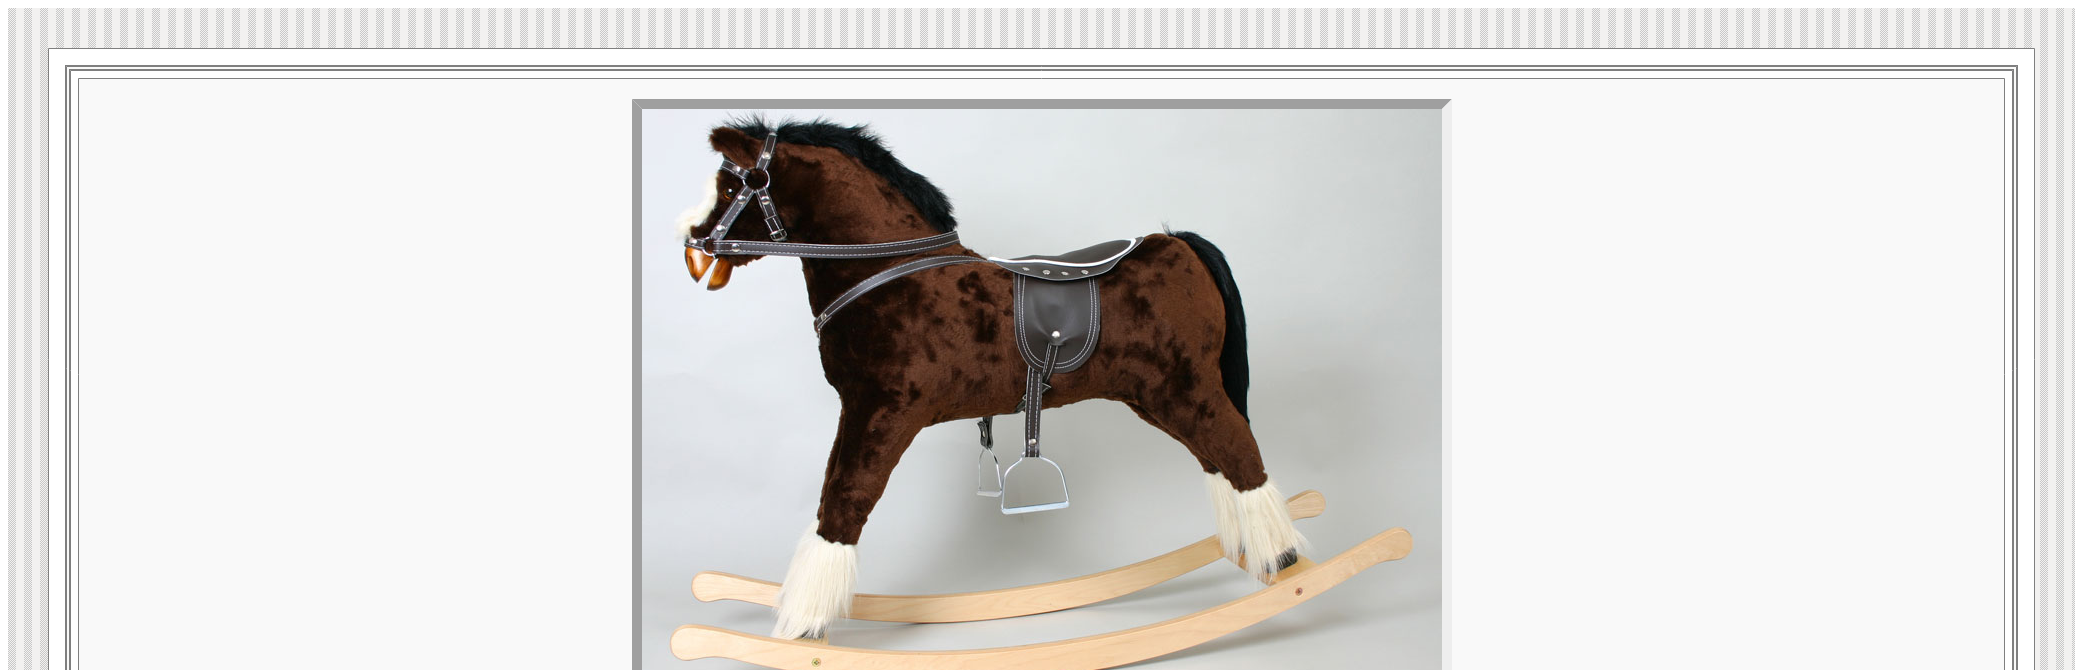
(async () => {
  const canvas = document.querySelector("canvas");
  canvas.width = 2083;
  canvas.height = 670;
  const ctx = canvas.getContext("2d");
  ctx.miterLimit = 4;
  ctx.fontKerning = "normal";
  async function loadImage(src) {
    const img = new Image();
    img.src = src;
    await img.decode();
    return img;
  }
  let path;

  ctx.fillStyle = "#ffffff";
  ctx.fillRect(0, 0, 2083, 670);
  ctx.fillStyle = "#f2f1f0";
  ctx.fillRect(8, 8, 2067, 662);
  ctx.drawImage(await loadImage("img/1.png"), 8, 8, 2067, 662);
  ctx.fillStyle = "#ffffff";
  ctx.beginPath();
  ctx.rect(48.5, 48.5, 1986, 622);
  ctx.fill();
  ctx.strokeStyle = "#7f7f7f";
  ctx.stroke();
  ctx.strokeRect(65.5, 65.5, 1952, 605);
  ctx.fillStyle = "#f9f9f8";
  ctx.beginPath();
  ctx.rect(66.5, 66.5, 1950, 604);
  ctx.fill();
  ctx.stroke();
  ctx.strokeRect(69.5, 69.5, 1944, 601);
  ctx.fillStyle = "#ffffff";
  ctx.beginPath();
  ctx.rect(70.5, 70.5, 1942, 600);
  ctx.fill();
  ctx.stroke();
  ctx.fillStyle = "#f9f9f9";
  ctx.beginPath();
  ctx.rect(78.5, 78.5, 1926, 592);
  ctx.fill();
  ctx.stroke();
  ctx.fillStyle = "#9f9f9f";
  path = new Path2D("M632 99H1452L1442 109H642Z");
  ctx.fill(path);
  path = new Path2D("M632 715V99L642 109V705Z");
  ctx.fill(path);
  ctx.drawImage(await loadImage("img/2.png"), 642, 109, 800, 561);
  ctx.fillStyle = "#eeeeee";
  path = new Path2D("M1452 99V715L1442 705V109Z");
  ctx.fill(path);
})();
